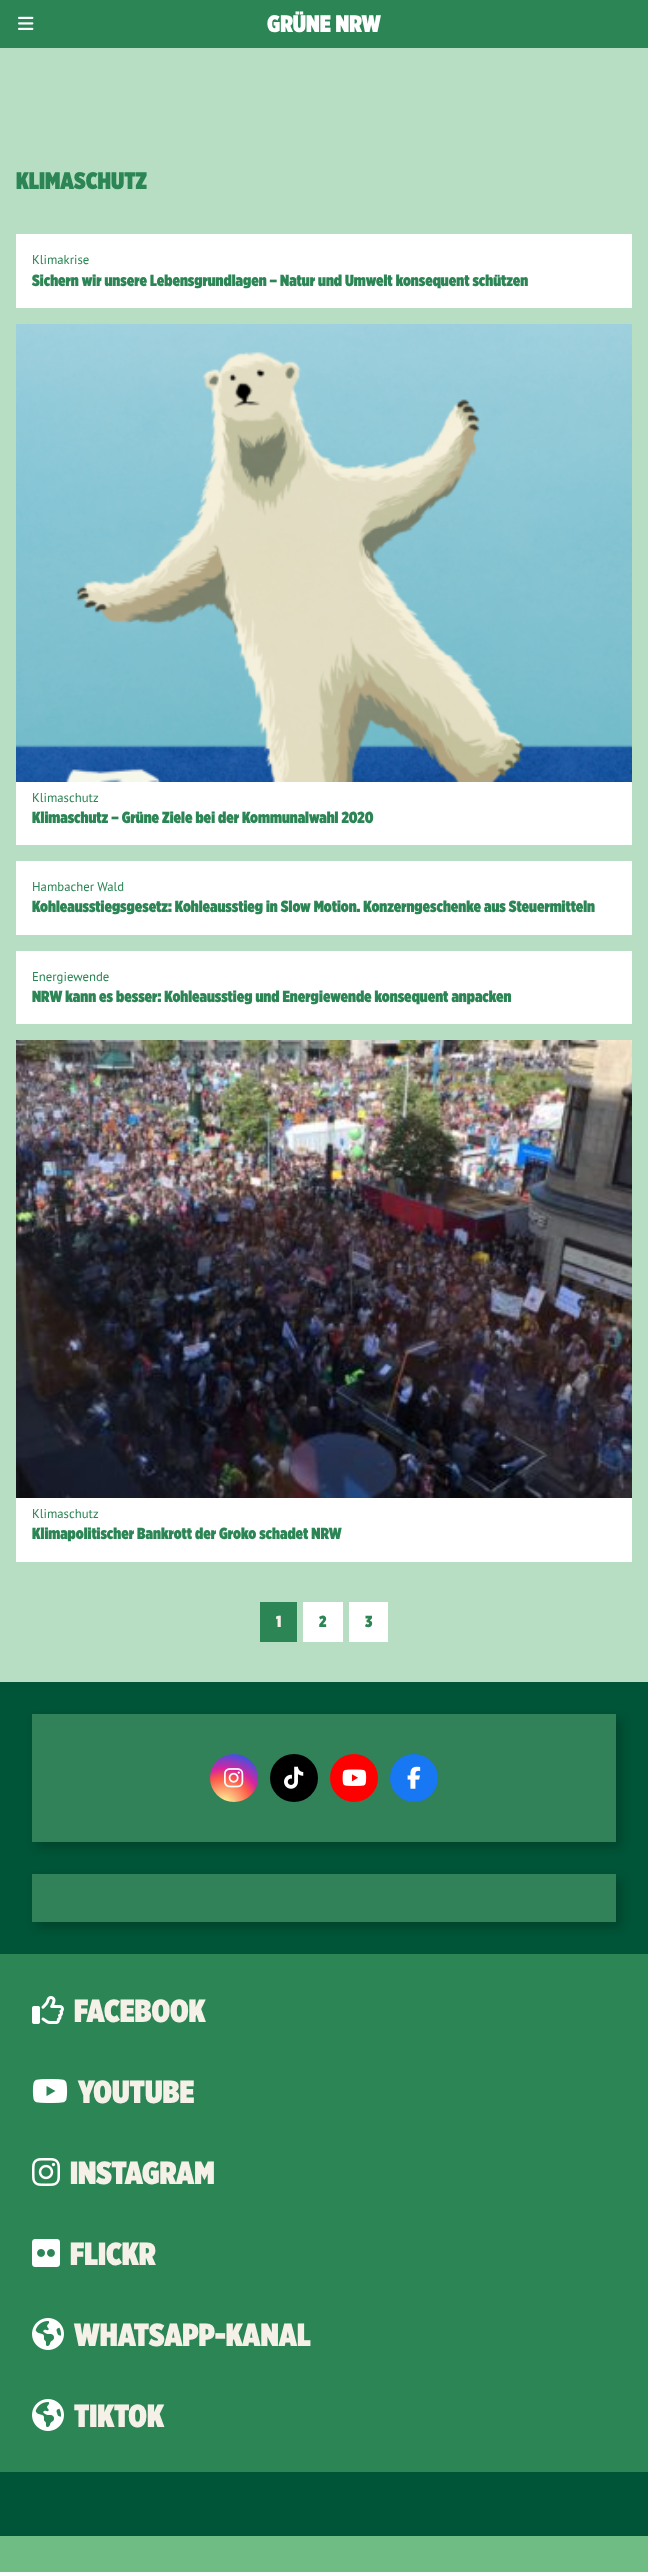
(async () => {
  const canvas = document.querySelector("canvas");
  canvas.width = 648;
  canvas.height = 2572;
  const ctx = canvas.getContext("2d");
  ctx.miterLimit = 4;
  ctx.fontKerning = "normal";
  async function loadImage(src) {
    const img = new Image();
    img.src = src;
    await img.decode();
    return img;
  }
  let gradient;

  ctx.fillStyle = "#b7dec2";
  ctx.fillRect(0, 0, 648, 2572);
  ctx.fillStyle = "#2b8554";
  ctx.fillRect(0, 0, 648, 48);
  ctx.drawImage(await loadImage("img/1.png"), 18, 16, 16, 14);
  ctx.fillStyle = "#ffffff";
  ctx.fillRect(16, 234, 616, 74);
  ctx.fillRect(16, 782, 616, 63);
  ctx.drawImage(await loadImage("img/2.png"), 16, 324, 616, 458);
  for (const [x, y, w, h, color] of [
    [16, 861, 616, 74, "#ffffff"],
    [16, 951, 616, 73, "#ffffff"],
    [16, 1498, 616, 64, "#ffffff"],
  ]) {
    ctx.fillStyle = color;
    ctx.fillRect(x, y, w, h);
  }
  ctx.drawImage(await loadImage("img/3.png"), 16, 1040, 616, 458);
  for (const [x, y, w, h, color] of [
    [260, 1602, 37, 40, "#2b8554"],
    [303, 1602, 40, 40, "#ffffff"],
    [349, 1602, 39, 40, "#ffffff"],
    [0, 1682, 648, 272, "#005437"],
  ]) {
    ctx.fillStyle = color;
    ctx.fillRect(x, y, w, h);
  }
  ctx.fillStyle = "rgba(0, 0, 0, 0.2)";
  ctx.filter = "blur(5px)";
  ctx.beginPath();
  ctx.rect(37, 1719, 584, 128);
  ctx.fill();
  ctx.filter = "none";
  ctx.fillStyle = "#318259";
  ctx.fillRect(32, 1714, 584, 128);
  gradient = ctx.createRadialGradient(224, 1805, 0, 224, 1805, 61);
  gradient.addColorStop(0, "#fdf497");
  gradient.addColorStop(0.05, "#fdf497");
  gradient.addColorStop(0.45, "#fd5949");
  gradient.addColorStop(0.6, "#d6249f");
  gradient.addColorStop(0.9, "#285aeb");
  ctx.fillStyle = gradient;
  ctx.beginPath();
  ctx.arc(234, 1778, 24, 0, Math.PI * 2);
  ctx.fill();
  ctx.drawImage(await loadImage("img/4.png"), 224, 1768, 20, 20);
  ctx.fillStyle = "#000000";
  ctx.beginPath();
  ctx.arc(294, 1778, 24, 0, Math.PI * 2);
  ctx.fill();
  ctx.drawImage(await loadImage("img/5.png"), 284, 1766, 20, 23);
  ctx.fillStyle = "#ff0000";
  ctx.beginPath();
  ctx.arc(354, 1778, 24, 0, Math.PI * 2);
  ctx.fill();
  ctx.drawImage(await loadImage("img/6.png"), 342, 1769, 25, 17);
  ctx.fillStyle = "#1877f2";
  ctx.beginPath();
  ctx.arc(414, 1778, 24, 0, Math.PI * 2);
  ctx.fill();
  ctx.drawImage(await loadImage("img/7.png"), 407, 1766, 14, 23);
  ctx.fillStyle = "rgba(0, 0, 0, 0.2)";
  ctx.filter = "blur(5px)";
  ctx.beginPath();
  ctx.rect(37, 1879, 584, 48);
  ctx.fill();
  ctx.filter = "none";
  ctx.fillStyle = "#318259";
  ctx.fillRect(32, 1874, 584, 48);
  ctx.fillStyle = "#2b8554";
  ctx.fillRect(0, 1954, 648, 518);
  ctx.drawImage(await loadImage("img/8.png"), 32, 1996, 32, 28);
  ctx.drawImage(await loadImage("img/9.png"), 32, 2079, 36, 24);
  ctx.drawImage(await loadImage("img/10.png"), 32, 2158, 28, 28);
  ctx.drawImage(await loadImage("img/11.png"), 32, 2239, 28, 28);
  ctx.drawImage(await loadImage("img/12.png"), 32, 2318, 32, 32);
  ctx.drawImage(await loadImage("img/12.png"), 32, 2399, 32, 32);
  ctx.fillStyle = "#6fbc85";
  ctx.fillRect(0, 2536, 648, 36);
  ctx.fillStyle = "#005437";
  ctx.fillRect(0, 2472, 648, 64);
  ctx.font = "900 24px Gotham";
  ctx.fillStyle = "#ffffff";
  ctx.fillText("GRÜNE NRW", 267, 32);
  ctx.fillStyle = "#2b8554";
  ctx.fillText("KLIMASCHUTZ", 16, 189);
  ctx.font = "12.75px PT Sans";
  ctx.fillText("Klimakrise", 32, 264);
  ctx.font = "900 16px Gotham";
  ctx.fillText("Sichern wir unsere Lebensgrundlagen – Natur und Umwelt konsequent schützen", 32, 286);
  ctx.font = "12.75px PT Sans";
  ctx.fillText("Klimaschutz", 32, 802);
  ctx.font = "900 16px Gotham";
  ctx.fillText("Klimaschutz – Grüne Ziele bei der Kommunalwahl 2020", 32, 823);
  ctx.font = "12.75px PT Sans";
  ctx.fillText("Hambacher Wald", 32, 891);
  ctx.font = "900 16px Gotham";
  ctx.fillText("Kohleausstiegsgesetz: Kohleausstieg in Slow Motion. Konzerngeschenke aus Steuermitteln", 32, 912);
  ctx.font = "12.75px PT Sans";
  ctx.fillText("Energiewende", 32, 981);
  ctx.font = "900 16px Gotham";
  ctx.fillText("NRW kann es besser: Kohleausstieg und Energiewende konsequent anpacken", 32, 1002);
  ctx.font = "12.75px PT Sans";
  ctx.fillText("Klimaschutz", 32, 1518);
  ctx.font = "900 16px Gotham";
  ctx.fillText("Klimapolitischer Bankrott der Groko schadet NRW", 32, 1539);
  ctx.fillStyle = "#f5f1e9";
  ctx.fillText("1", 276, 1627);
  ctx.fillStyle = "#2b8554";
  ctx.fillText("2", 319, 1627);
  ctx.fillText("3", 365, 1627);
  ctx.font = "900 32px Gotham";
  ctx.fillStyle = "#f5f1e9";
  for (const [text, x, y] of [
    ["FACEBOOK", 74, 2022],
    ["YOUTUBE", 78, 2103],
    ["INSTAGRAM", 70, 2184],
    ["FLICKR", 70, 2265],
    ["WHATSAPP-KANAL", 74, 2346],
    ["TIKTOK", 74, 2427],
  ]) {
    ctx.fillText(text, x, y);
  }
})();
